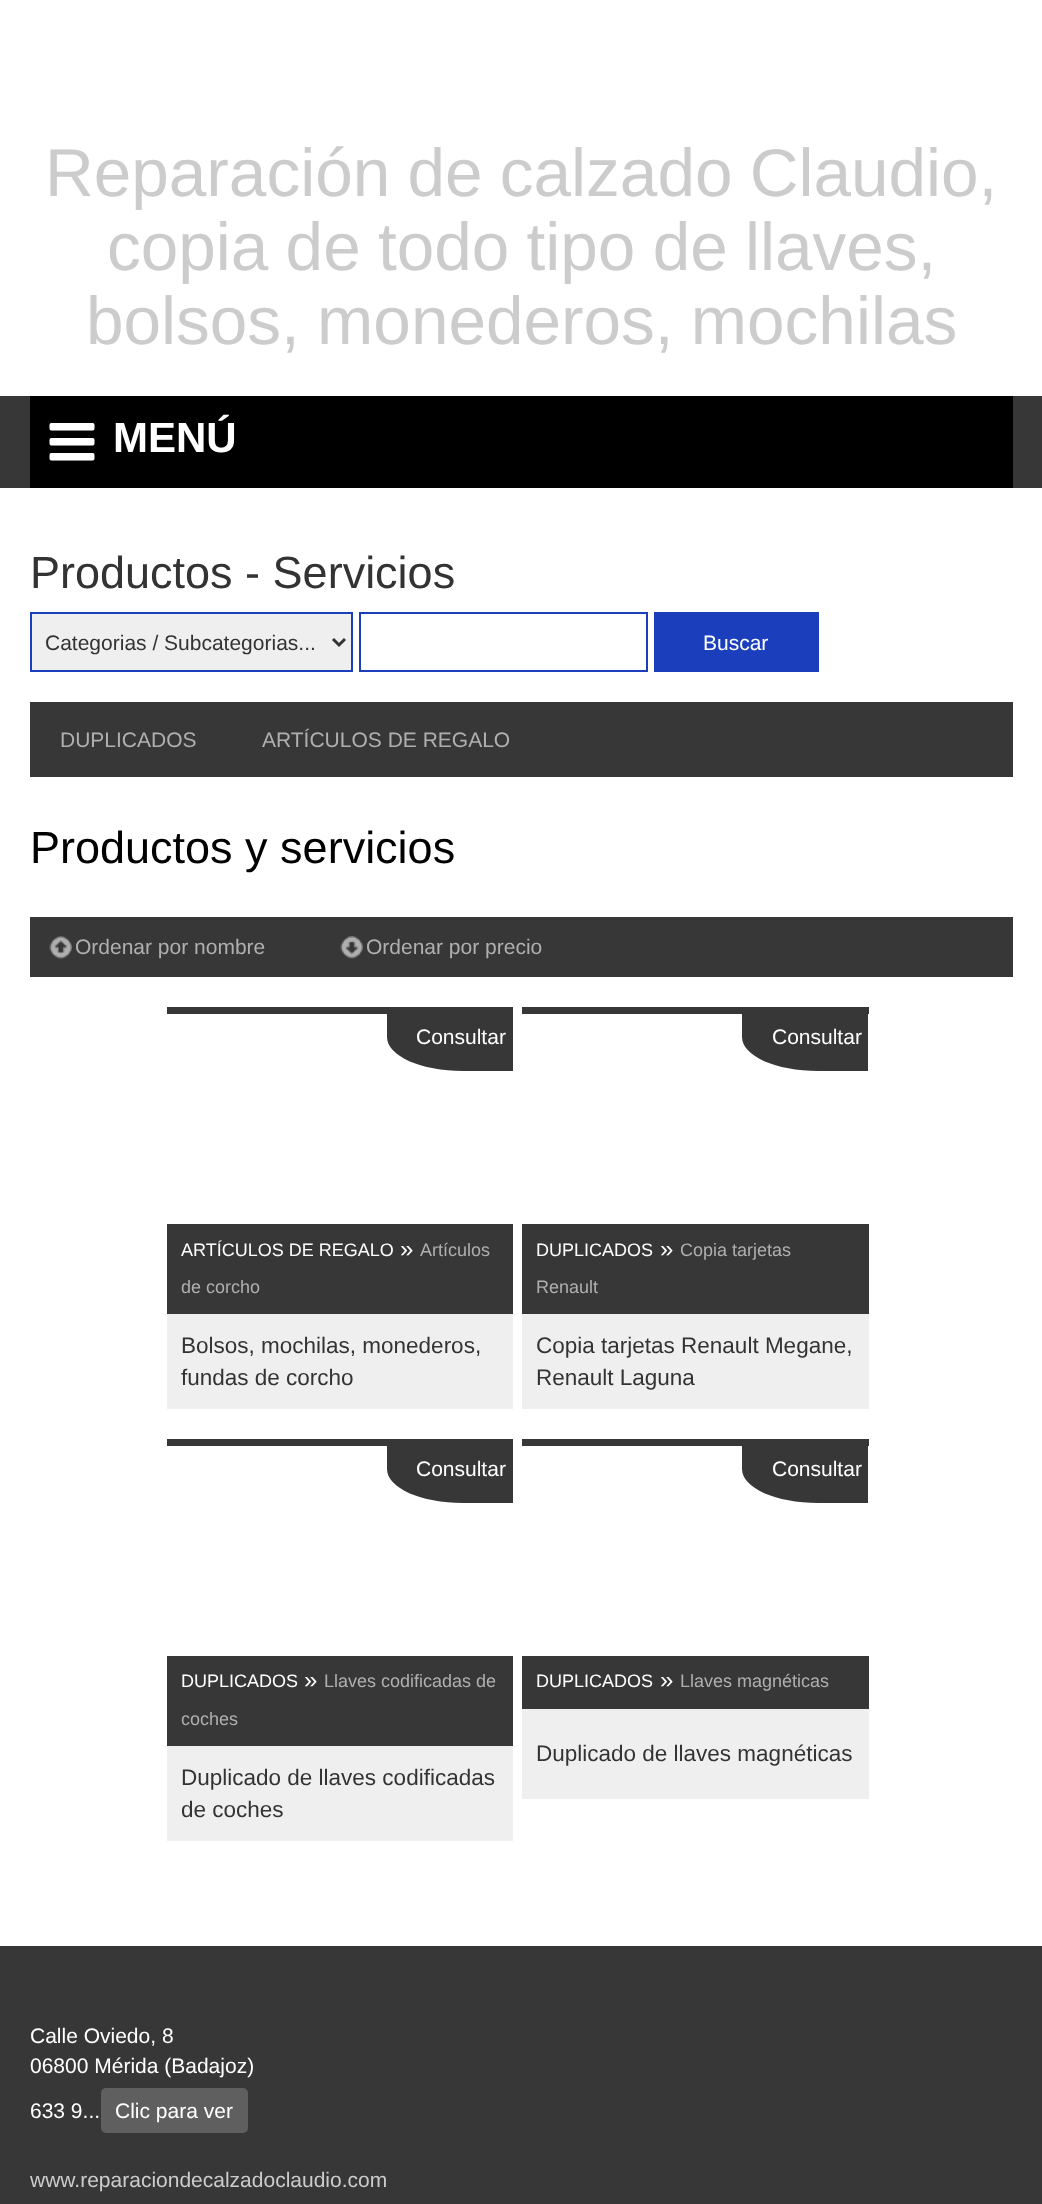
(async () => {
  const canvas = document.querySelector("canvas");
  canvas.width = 1042;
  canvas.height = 2204;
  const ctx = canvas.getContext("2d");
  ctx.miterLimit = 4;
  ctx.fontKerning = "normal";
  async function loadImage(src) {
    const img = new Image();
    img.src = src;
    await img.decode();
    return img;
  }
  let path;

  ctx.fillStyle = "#ffffff";
  ctx.fillRect(0, 0, 1042, 2204);
  ctx.fillStyle = "#373737";
  ctx.fillRect(0, 396, 1042, 92);
  ctx.fillStyle = "#000000";
  ctx.fillRect(30, 396, 983, 92);
  ctx.drawImage(await loadImage("img/1.png"), 49, 423, 46, 38);
  ctx.fillStyle = "#efefef";
  ctx.beginPath();
  ctx.rect(31, 613, 321, 58);
  ctx.fill();
  ctx.strokeStyle = "#1a3ebc";
  ctx.lineWidth = 2;
  ctx.stroke();
  path = new Path2D("M333 639L339 645L345 639");
  ctx.strokeStyle = "#333333";
  ctx.lineWidth = 3;
  ctx.stroke(path);
  ctx.strokeStyle = "#1a3ebc";
  ctx.lineWidth = 2;
  ctx.strokeRect(360, 613, 287, 58);
  for (const [x, y, w, h, color] of [
    [654, 612, 165, 60, "#1a3ebc"],
    [30, 702, 983, 75, "#373737"],
    [30, 917, 983, 60, "#373737"],
  ]) {
    ctx.fillStyle = color;
    ctx.fillRect(x, y, w, h);
  }
  ctx.drawImage(await loadImage("img/2.png"), 49, 936, 23, 23);
  ctx.drawImage(await loadImage("img/3.png"), 340, 936, 23, 23);
  ctx.fillRect(167, 1007, 346, 7);
  path = new Path2D("M387 1014H513V1071H463C421 1071 387 1056 387 1037Z");
  ctx.fill(path);
  for (const [x, y, w, h, color] of [
    [167, 1224, 346, 90, "#373737"],
    [167, 1314, 346, 95, "#efefef"],
    [522, 1007, 347, 7, "#373737"],
  ]) {
    ctx.fillStyle = color;
    ctx.fillRect(x, y, w, h);
  }
  path = new Path2D("M742 1014H868V1071H818C776 1071 742 1056 742 1037Z");
  ctx.fill(path);
  for (const [x, y, w, h, color] of [
    [522, 1224, 347, 90, "#373737"],
    [522, 1314, 347, 95, "#efefef"],
    [167, 1439, 346, 7, "#373737"],
  ]) {
    ctx.fillStyle = color;
    ctx.fillRect(x, y, w, h);
  }
  path = new Path2D("M387 1446H513V1503H463C421 1503 387 1488 387 1469Z");
  ctx.fill(path);
  for (const [x, y, w, h, color] of [
    [167, 1656, 346, 90, "#373737"],
    [167, 1746, 346, 95, "#efefef"],
    [522, 1439, 347, 7, "#373737"],
  ]) {
    ctx.fillStyle = color;
    ctx.fillRect(x, y, w, h);
  }
  path = new Path2D("M742 1446H868V1503H818C776 1503 742 1488 742 1469Z");
  ctx.fill(path);
  for (const [x, y, w, h, color] of [
    [522, 1656, 347, 53, "#373737"],
    [522, 1709, 347, 90, "#efefef"],
    [0, 1946, 1042, 258, "#373737"],
  ]) {
    ctx.fillStyle = color;
    ctx.fillRect(x, y, w, h);
  }
  ctx.fillStyle = "#5f5f5f";
  ctx.beginPath();
  ctx.roundRect(101, 2088, 147, 45, 5);
  ctx.fill();
  ctx.wordSpacing = "-1.5px";
  ctx.font = "67.5px Liberation Sans";
  ctx.fillStyle = "#cccccc";
  for (const [text, x, y] of [
    ["Reparación de calzado Claudio,", 45, 196],
    ["copia de todo tipo de llaves,", 107, 270],
    ["bolsos, monederos, mochilas", 86, 344],
  ]) {
    ctx.fillText(text, x, y);
  }
  ctx.wordSpacing = "0px";
  ctx.font = "bold 42px Liberation Sans";
  ctx.fillStyle = "#ffffff";
  ctx.fillText("MENÚ", 113, 452);
  ctx.font = "45px Liberation Sans";
  ctx.fillStyle = "#333333";
  ctx.fillText("Productos - Servicios", 30, 588);
  ctx.font = "21px Liberation Sans";
  ctx.fillText("Categorias / Subcategorias...", 45, 650);
  ctx.fillStyle = "#ffffff";
  ctx.fillText("Buscar", 703, 650);
  ctx.fillStyle = "#afafaf";
  ctx.fillText("DUPLICADOS", 60, 747);
  ctx.fillText("ARTÍCULOS DE REGALO", 262, 747);
  ctx.font = "45px Liberation Sans";
  ctx.fillStyle = "#000000";
  ctx.fillText("Productos y servicios", 30, 863);
  ctx.font = "21px Liberation Sans";
  ctx.fillStyle = "#afafaf";
  ctx.fillText("Ordenar por nombre", 75, 954);
  ctx.fillText("Ordenar por precio", 366, 954);
  ctx.fillStyle = "#ffffff";
  ctx.fillText("Consultar", 416, 1044);
  ctx.font = "18px Liberation Sans";
  ctx.fillText("ARTÍCULOS DE REGALO", 181, 1256);
  ctx.font = "24px Liberation Sans";
  ctx.fillText("»", 400, 1257);
  ctx.font = "18px Liberation Sans";
  ctx.fillStyle = "#afafaf";
  ctx.fillText("Artículos", 420, 1256);
  ctx.fillText("de corcho", 181, 1293);
  ctx.font = "22.5px Liberation Sans";
  ctx.fillStyle = "#333333";
  ctx.fillText("Bolsos, mochilas, monederos,", 181, 1353);
  ctx.fillText("fundas de corcho", 181, 1385);
  ctx.font = "21px Liberation Sans";
  ctx.fillStyle = "#ffffff";
  ctx.fillText("Consultar", 772, 1044);
  ctx.font = "18px Liberation Sans";
  ctx.fillText("DUPLICADOS", 536, 1256);
  ctx.font = "24px Liberation Sans";
  ctx.fillText("»", 660, 1257);
  ctx.font = "18px Liberation Sans";
  ctx.fillStyle = "#afafaf";
  ctx.fillText("Copia tarjetas", 680, 1256);
  ctx.fillText("Renault", 536, 1293);
  ctx.font = "22.5px Liberation Sans";
  ctx.fillStyle = "#333333";
  ctx.fillText("Copia tarjetas Renault Megane,", 536, 1353);
  ctx.fillText("Renault Laguna", 536, 1385);
  ctx.font = "21px Liberation Sans";
  ctx.fillStyle = "#ffffff";
  ctx.fillText("Consultar", 416, 1476);
  ctx.font = "18px Liberation Sans";
  ctx.fillText("DUPLICADOS", 181, 1687);
  ctx.font = "24px Liberation Sans";
  ctx.fillText("»", 304, 1688);
  ctx.font = "18px Liberation Sans";
  ctx.fillStyle = "#afafaf";
  ctx.fillText("Llaves codificadas de", 324, 1687);
  ctx.fillText("coches", 181, 1725);
  ctx.font = "22.5px Liberation Sans";
  ctx.fillStyle = "#333333";
  ctx.fillText("Duplicado de llaves codificadas", 181, 1785);
  ctx.fillText("de coches", 181, 1817);
  ctx.font = "21px Liberation Sans";
  ctx.fillStyle = "#ffffff";
  ctx.fillText("Consultar", 772, 1476);
  ctx.font = "18px Liberation Sans";
  ctx.fillText("DUPLICADOS", 536, 1687);
  ctx.font = "24px Liberation Sans";
  ctx.fillText("»", 660, 1688);
  ctx.font = "18px Liberation Sans";
  ctx.fillStyle = "#afafaf";
  ctx.fillText("Llaves magnéticas", 680, 1687);
  ctx.font = "22.5px Liberation Sans";
  ctx.fillStyle = "#333333";
  ctx.fillText("Duplicado de llaves magnéticas", 536, 1761);
  ctx.font = "21px Liberation Sans";
  ctx.fillStyle = "#ffffff";
  for (const [text, x, y] of [
    ["Calle Oviedo, 8", 30, 2043],
    ["06800 Mérida (Badajoz)", 30, 2073],
    ["633 9...", 30, 2118],
    ["Clic para ver", 115, 2118],
  ]) {
    ctx.fillText(text, x, y);
  }
  ctx.fillStyle = "#cccccc";
  ctx.fillText("www.reparaciondecalzadoclaudio.com", 30, 2187);
})();
